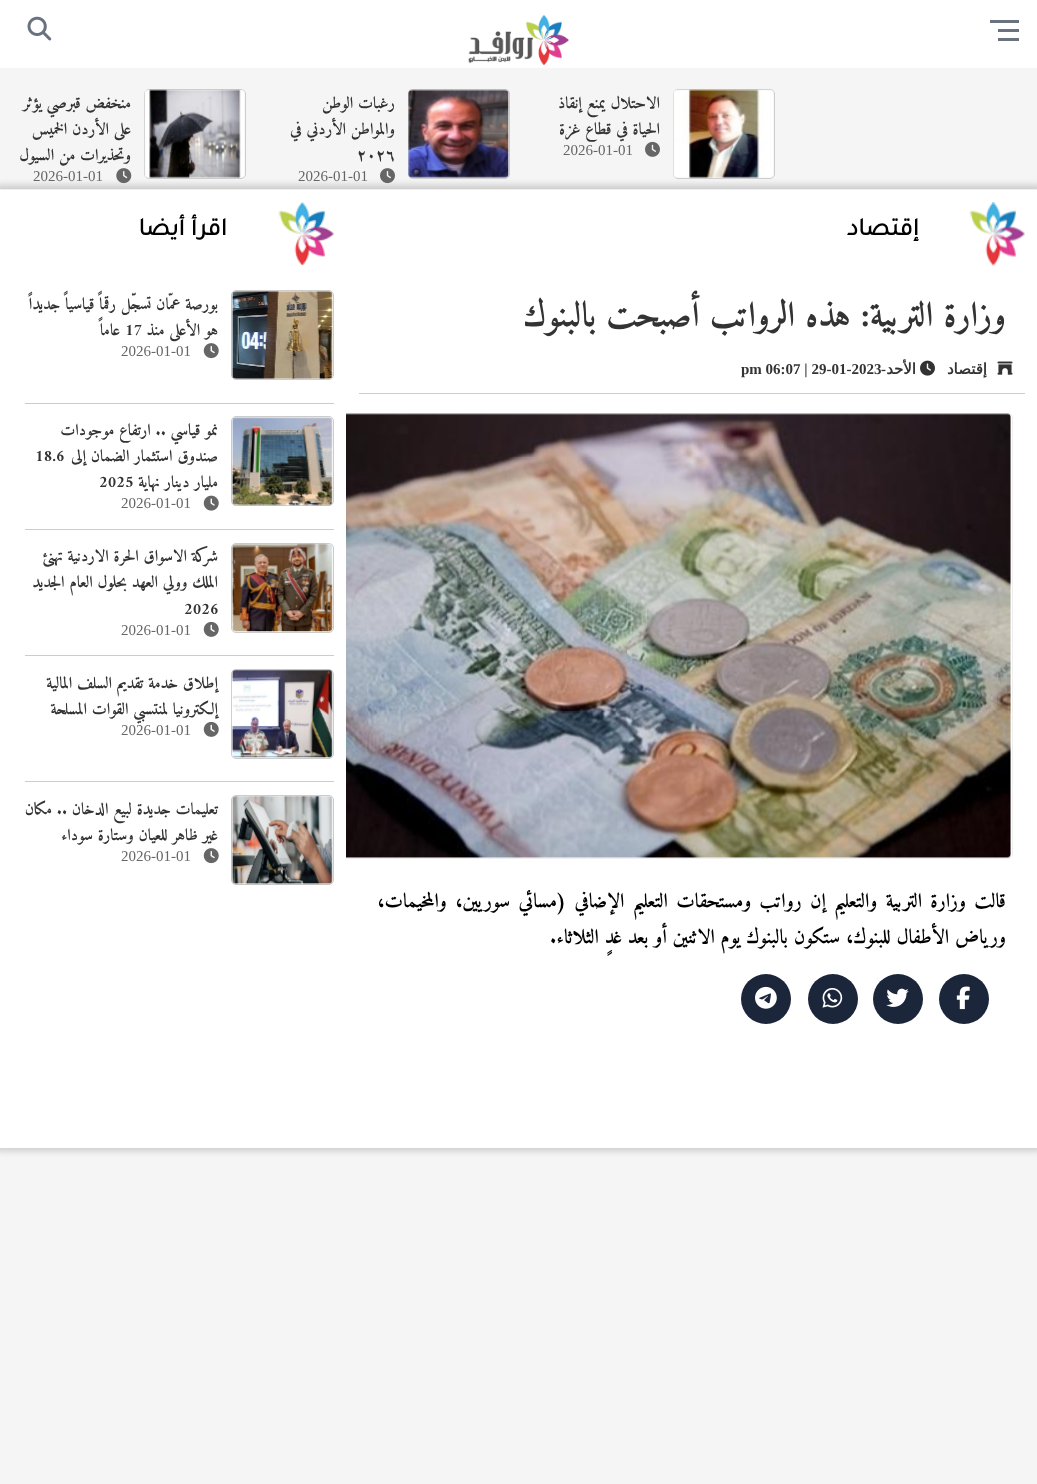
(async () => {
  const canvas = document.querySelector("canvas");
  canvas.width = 1037;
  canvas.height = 1484;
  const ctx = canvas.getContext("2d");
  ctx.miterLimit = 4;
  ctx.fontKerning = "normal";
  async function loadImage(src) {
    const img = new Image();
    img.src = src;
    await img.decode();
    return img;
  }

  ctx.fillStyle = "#f5f5f5";
  ctx.fillRect(0, 0, 1037, 1484);
  ctx.fillStyle = "rgba(0, 0, 0, 0.3)";
  ctx.filter = "blur(0.5px)";
  ctx.beginPath();
  ctx.rect(0, 0, 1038, 68);
  ctx.fill();
  ctx.filter = "none";
  for (const [x, y, w, h, color] of [
    [0, 0, 1037, 68, "#ffffff"],
    [998, 29, 21, 3, "#6a717f"],
    [990, 20, 29, 3, "#6a717f"],
    [998, 38, 21, 3, "#6a717f"],
  ]) {
    ctx.fillStyle = color;
    ctx.fillRect(x, y, w, h);
  }
  ctx.drawImage(await loadImage("img/1.png"), 468, 15, 101, 50);
  ctx.drawImage(await loadImage("img/2.png"), 27, 16, 25, 25);
  ctx.fillStyle = "#cccccc";
  ctx.filter = "blur(3px)";
  ctx.beginPath();
  ctx.rect(-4, 185, 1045, 966);
  ctx.fill();
  ctx.filter = "none";
  ctx.beginPath();
  ctx.roundRect(673.5, 89.5, 101, 89, 4.5);
  ctx.strokeStyle = "#cccccc";
  ctx.stroke();
  ctx.drawImage(await loadImage("img/3.png"), 673, 89, 101, 89);
  ctx.beginPath();
  ctx.roundRect(408.5, 89.5, 101, 89, 4.5);
  ctx.stroke();
  ctx.drawImage(await loadImage("img/5.png"), 408, 89, 101, 89);
  ctx.drawImage(await loadImage("img/6.png"), 380, 168, 15, 16);
  ctx.beginPath();
  ctx.roundRect(144.5, 89.5, 101, 89, 4.5);
  ctx.stroke();
  ctx.drawImage(await loadImage("img/7.png"), 144, 89, 101, 89);
  ctx.drawImage(await loadImage("img/8.png"), 116, 168, 16, 16);
  ctx.fillStyle = "#ffffff";
  ctx.fillRect(0, 190, 1037, 958);
  ctx.fillStyle = "#efefef";
  ctx.fillRect(0, 189, 1037, 1);
  ctx.drawImage(await loadImage("img/9.png"), 969, 202, 56, 64);
  ctx.fillStyle = "#cccccc";
  ctx.fillRect(359, 393, 666, 1);
  ctx.drawImage(await loadImage("img/10.png"), 997, 361, 16, 14);
  ctx.drawImage(await loadImage("img/11.png"), 920, 360, 15, 16);
  ctx.save();
  ctx.beginPath();
  ctx.rect(346, 190, 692, 958);
  ctx.clip();
  ctx.beginPath();
  ctx.roundRect(306.5, 413.5, 706, 445, 4.5);
  ctx.strokeStyle = "#efefef";
  ctx.stroke();
  ctx.restore();
  ctx.drawImage(await loadImage("img/12.png"), 346, 413, 665, 445);
  ctx.fillStyle = "#1b263b";
  ctx.beginPath();
  ctx.arc(964, 999, 25, 0, Math.PI * 2);
  ctx.fill();
  ctx.drawImage(await loadImage("img/13.png"), 956, 986, 14, 24);
  ctx.beginPath();
  ctx.arc(898, 999, 25, 0, Math.PI * 2);
  ctx.fill();
  ctx.drawImage(await loadImage("img/14.png"), 886, 988, 23, 19);
  ctx.beginPath();
  ctx.arc(833, 999, 25, 0, Math.PI * 2);
  ctx.fill();
  ctx.drawImage(await loadImage("img/15.png"), 822, 988, 21, 20);
  ctx.beginPath();
  ctx.arc(766, 999, 25, 0, Math.PI * 2);
  ctx.fill();
  ctx.drawImage(await loadImage("img/16.png"), 755, 986, 22, 23);
  ctx.drawImage(await loadImage("img/17.png"), 278, 202, 56, 63);
  ctx.fillStyle = "#cccccc";
  ctx.fillRect(25, 403, 309, 1);
  ctx.beginPath();
  ctx.roundRect(231.5, 290.5, 102, 89, 4.5);
  ctx.stroke();
  ctx.drawImage(await loadImage("img/18.png"), 231, 291, 102, 88);
  ctx.drawImage(await loadImage("img/19.png"), 203, 343, 16, 16);
  ctx.fillRect(25, 529, 309, 1);
  ctx.beginPath();
  ctx.roundRect(231.5, 416.5, 102, 89, 4.5);
  ctx.stroke();
  ctx.drawImage(await loadImage("img/20.png"), 231, 417, 102, 89);
  ctx.drawImage(await loadImage("img/21.png"), 203, 495, 16, 16);
  ctx.fillRect(25, 655, 309, 1);
  ctx.beginPath();
  ctx.roundRect(231.5, 543.5, 102, 89, 4.5);
  ctx.stroke();
  ctx.drawImage(await loadImage("img/22.png"), 231, 543, 102, 89);
  ctx.drawImage(await loadImage("img/23.png"), 203, 621, 16, 16);
  ctx.fillRect(25, 781, 309, 1);
  ctx.beginPath();
  ctx.roundRect(231.5, 669.5, 102, 89, 4.5);
  ctx.stroke();
  ctx.drawImage(await loadImage("img/24.png"), 231, 669, 102, 89);
  ctx.beginPath();
  ctx.roundRect(231.5, 795.5, 102, 89, 4.5);
  ctx.stroke();
  ctx.drawImage(await loadImage("img/25.png"), 231, 796, 102, 89);
  ctx.drawImage(await loadImage("img/19.png"), 203, 848, 16, 16);
  ctx.direction = "rtl";
  ctx.font = "bold 16.25px Amiri";
  ctx.fillStyle = "#333333";
  ctx.fillText("الاحتلال يمنع إنقاذ", 660, 108);
  ctx.fillText("الحياة في قطاع غزة", 660, 134);
  ctx.drawImage(await loadImage("img/4.png"), 645, 141, 15, 16);
  ctx.direction = "ltr";
  ctx.font = "15px Liberation Serif";
  ctx.fillStyle = "#666666";
  ctx.fillText("2026-01-01", 563, 155);
  ctx.direction = "rtl";
  ctx.font = "bold 16.25px Amiri";
  ctx.fillStyle = "#333333";
  ctx.fillText("رغبات الوطن", 395, 108);
  ctx.fillText("والمواطن الأردني في", 395, 134);
  ctx.direction = "ltr";
  ctx.fillText("٢٠٢٦", 357, 160);
  ctx.font = "15px Liberation Serif";
  ctx.fillStyle = "#666666";
  ctx.fillText("2026-01-01", 298, 181);
  ctx.direction = "rtl";
  ctx.font = "bold 16.25px Amiri";
  ctx.fillStyle = "#333333";
  for (const [text, x, y] of [
    ["منخفض قبرصي يؤثر", 131, 108],
    ["على الأردن الخميس", 131, 134],
    ["وتحذيرات من السيول", 131, 160],
  ]) {
    ctx.fillText(text, x, y);
  }
  ctx.direction = "ltr";
  ctx.font = "15px Liberation Serif";
  ctx.fillStyle = "#666666";
  ctx.fillText("2026-01-01", 33, 181);
  ctx.direction = "rtl";
  ctx.font = "bold 25px Tajawal";
  ctx.fillStyle = "#000000";
  ctx.fillText("إقتصاد", 919, 235);
  ctx.font = "bold 35px Amiri";
  ctx.fillStyle = "#333333";
  ctx.fillText("وزارة التربية: هذه الرواتب أصبحت بالبنوك", 1006, 326);
  ctx.font = "bold 15px DejaVu Sans";
  ctx.fillText("إقتصاد", 987, 374);
  ctx.fillText("الأحد", 916, 374);
  ctx.font = "bold 15px Liberation Serif";
  ctx.fillText("-", 886, 374);
  ctx.direction = "ltr";
  ctx.fillText("pm 06:07 | 29-01-2023", 741, 374);
  ctx.wordSpacing = "2.5px";
  ctx.direction = "rtl";
  ctx.font = "bold 20px Amiri";
  ctx.fillStyle = "#000000";
  ctx.fillText("قالت وزارة التربية والتعليم إن رواتب ومستحقات التعليم الإضافي (مسائي سوريين، والمخيمات،", 1006, 907);
  ctx.wordSpacing = "0px";
  ctx.fillText("ورياض الأطفال للبنوك، ستكون بالبنوك يوم الاثنين أو بعد غدٍ الثلاثاء.", 1006, 943);
  ctx.font = "bold 25px Tajawal";
  ctx.fillText("اقرأ أيضا", 227, 235);
  ctx.font = "bold 16.25px Amiri";
  ctx.fillStyle = "#333333";
  ctx.fillText("بورصة عمّان تسجّل رقماً قياسياً جديداً", 218, 309);
  ctx.fillText("هو الأعلى منذ", 218, 335);
  ctx.direction = "ltr";
  ctx.fillText("17", 125, 335);
  ctx.direction = "rtl";
  ctx.fillText("عاماً", 120, 335);
  ctx.direction = "ltr";
  ctx.font = "15px Liberation Serif";
  ctx.fillStyle = "#666666";
  ctx.fillText("2026-01-01", 121, 356);
  ctx.direction = "rtl";
  ctx.font = "bold 16.25px Amiri";
  ctx.fillStyle = "#333333";
  ctx.fillText("نمو قياسي .. ارتفاع موجودات", 218, 435);
  ctx.fillText("صندوق استثمار الضمان إلى", 218, 461);
  ctx.direction = "ltr";
  ctx.fillText("18.6", 35, 461);
  ctx.direction = "rtl";
  ctx.fillText("مليار دينار نهاية", 218, 487);
  ctx.direction = "ltr";
  ctx.fillText("2025", 99, 487);
  ctx.font = "15px Liberation Serif";
  ctx.fillStyle = "#666666";
  ctx.fillText("2026-01-01", 121, 508);
  ctx.direction = "rtl";
  ctx.font = "bold 16.25px Amiri";
  ctx.fillStyle = "#333333";
  ctx.fillText("شركة الاسواق الحرة الاردنية تهنئ", 218, 561);
  ctx.fillText("الملك وولي العهد بحلول العام الجديد", 218, 587);
  ctx.direction = "ltr";
  ctx.fillText("2026", 184, 614);
  ctx.font = "15px Liberation Serif";
  ctx.fillStyle = "#666666";
  ctx.fillText("2026-01-01", 121, 635);
  ctx.direction = "rtl";
  ctx.font = "bold 16.25px Amiri";
  ctx.fillStyle = "#333333";
  ctx.fillText("إطلاق خدمة تقديم السلف المالية", 218, 688);
  ctx.fillText("إلكترونيا لمنتسبي القوات المسلحة", 218, 714);
  ctx.drawImage(await loadImage("img/23.png"), 203, 721, 16, 16);
  ctx.direction = "ltr";
  ctx.font = "15px Liberation Serif";
  ctx.fillStyle = "#666666";
  ctx.fillText("2026-01-01", 121, 735);
  ctx.direction = "rtl";
  ctx.font = "bold 16.25px Amiri";
  ctx.fillStyle = "#333333";
  ctx.fillText("تعليمات جديدة لبيع الدخان .. مكان", 218, 814);
  ctx.fillText("غير ظاهر للعيان وستارة سوداء", 218, 840);
  ctx.direction = "ltr";
  ctx.font = "15px Liberation Serif";
  ctx.fillStyle = "#666666";
  ctx.fillText("2026-01-01", 121, 861);
})();
